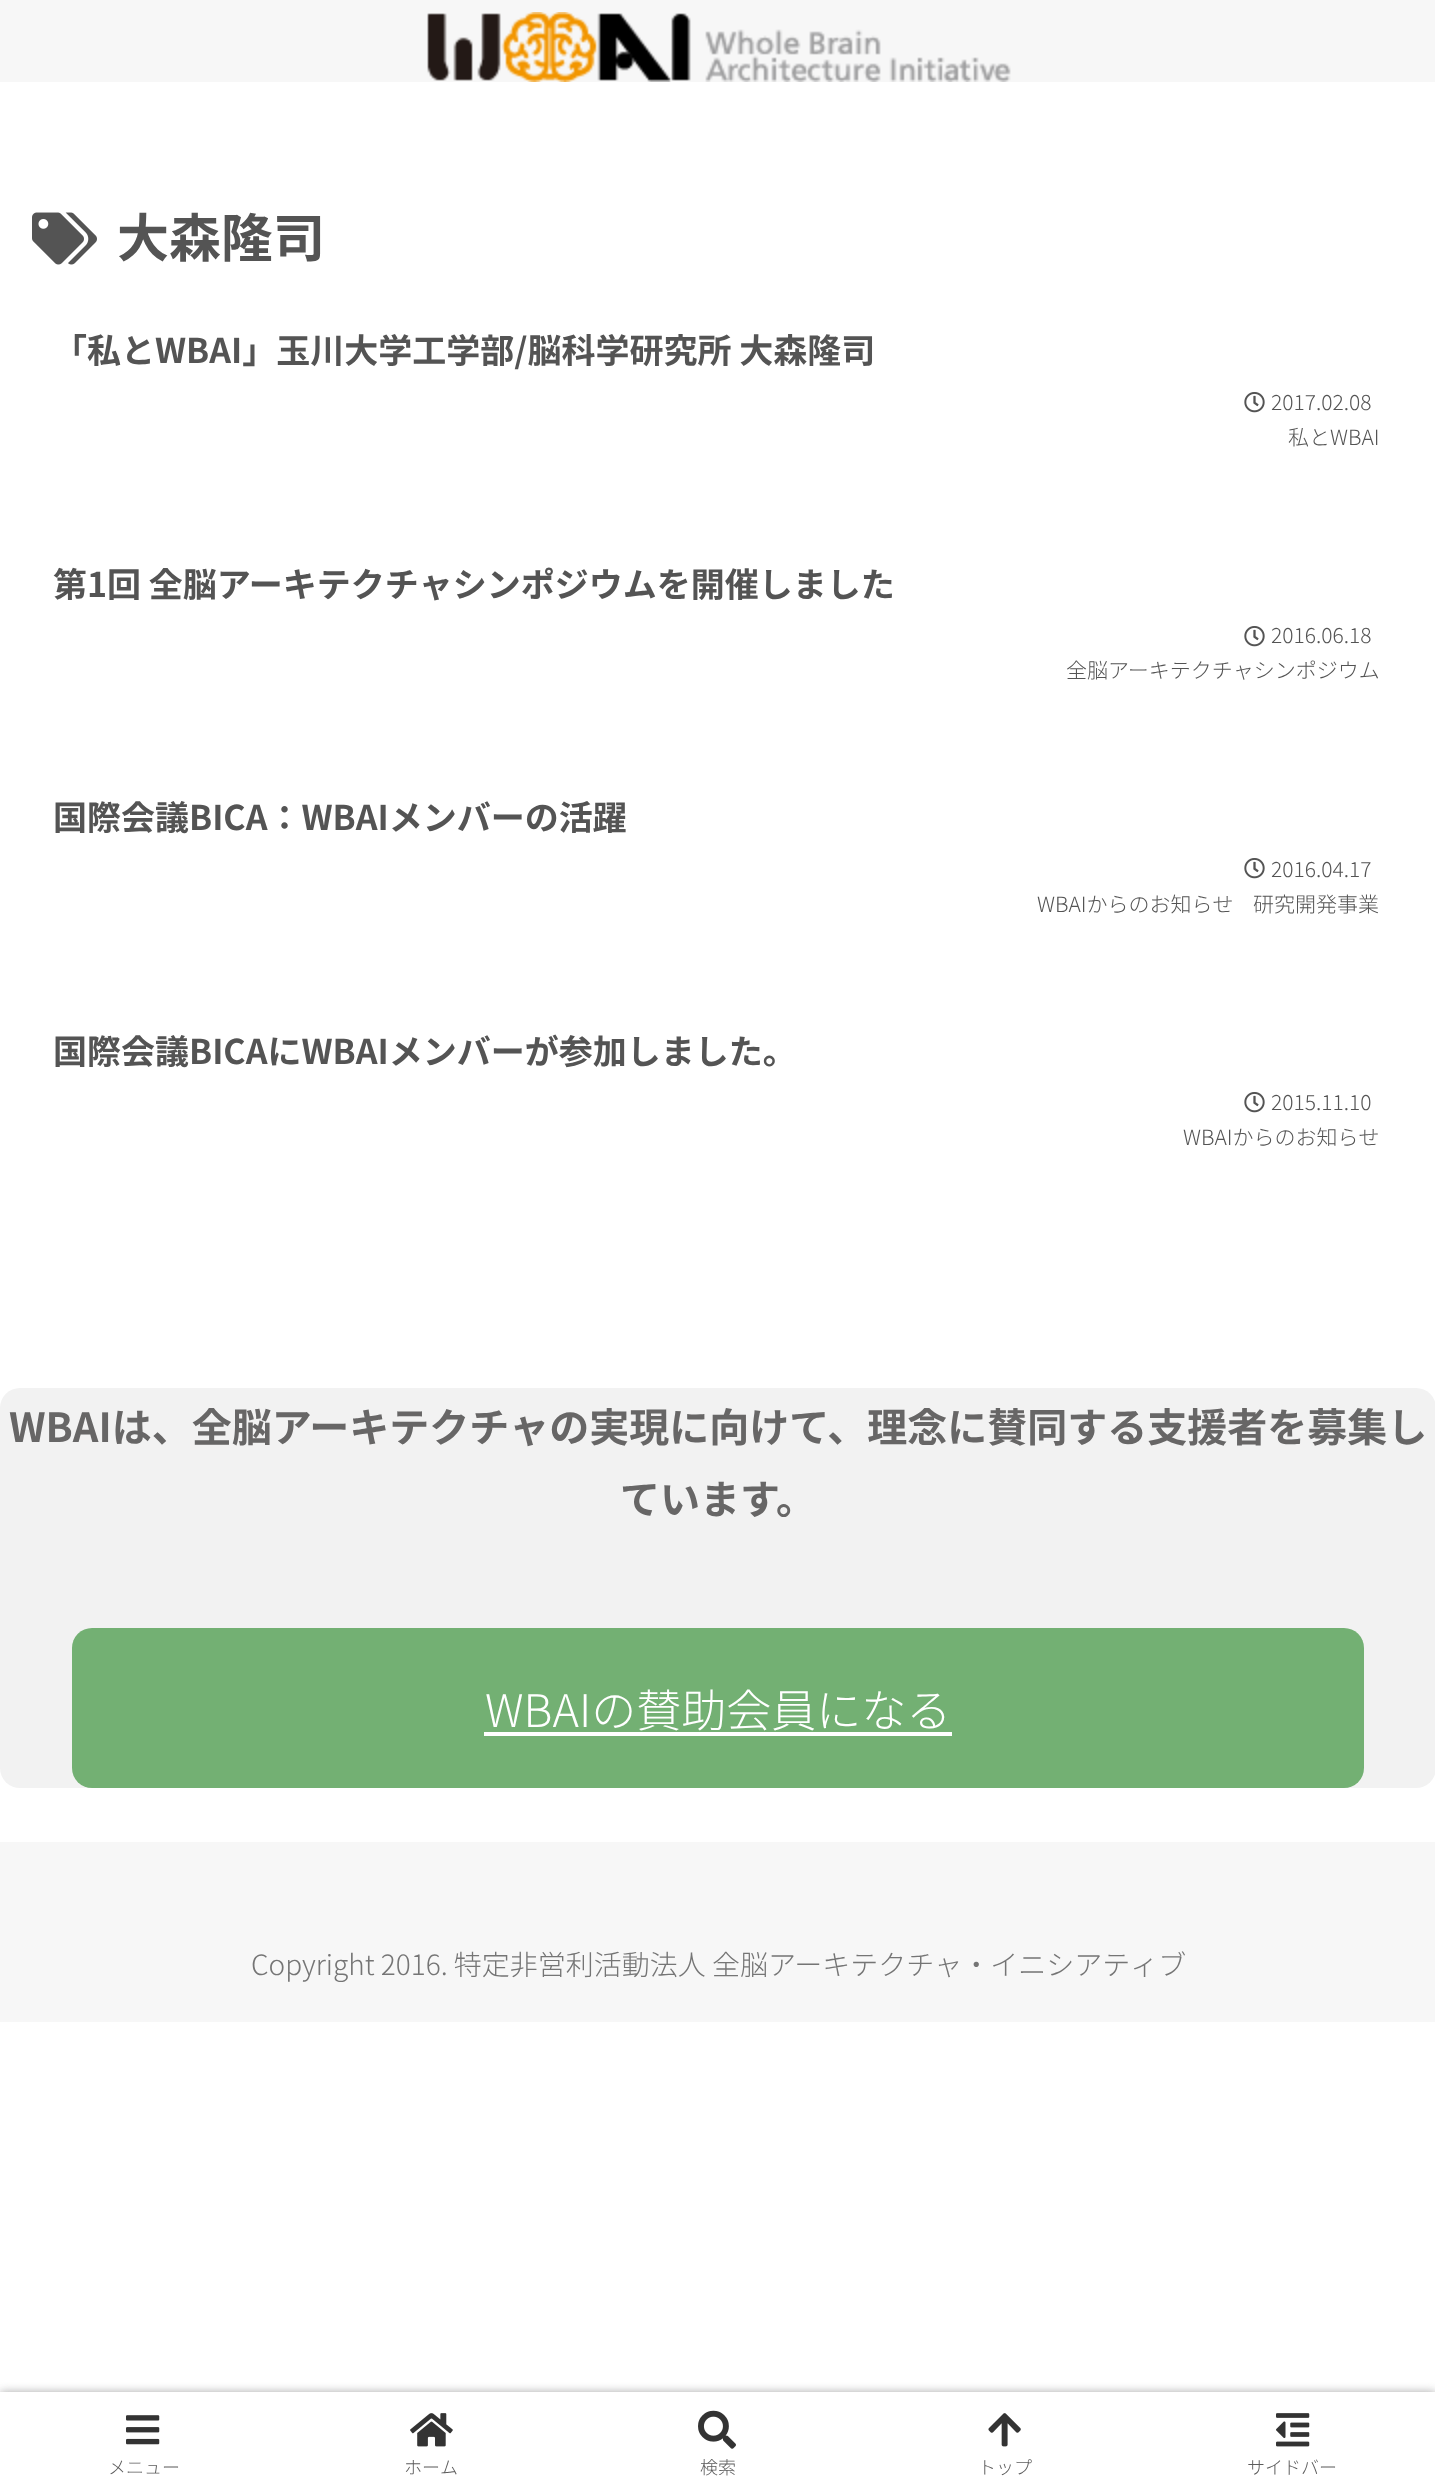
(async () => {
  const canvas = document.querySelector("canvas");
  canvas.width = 1435;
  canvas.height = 2492;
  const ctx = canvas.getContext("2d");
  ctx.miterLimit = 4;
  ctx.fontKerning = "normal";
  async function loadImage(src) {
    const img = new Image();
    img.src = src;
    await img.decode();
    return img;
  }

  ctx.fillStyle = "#ffffff";
  ctx.fillRect(0, 0, 1435, 2492);
  ctx.fillStyle = "#f7f7f7";
  ctx.fillRect(0, 0, 1435, 82);
  ctx.drawImage(await loadImage("img/1.png"), 427, 12, 584, 70);
  ctx.drawImage(await loadImage("img/2.png"), 32, 212, 65, 53);
  ctx.drawImage(await loadImage("img/3.png"), 1244, 392, 21, 21);
  ctx.drawImage(await loadImage("img/3.png"), 1244, 626, 21, 21);
  ctx.drawImage(await loadImage("img/3.png"), 1244, 858, 21, 21);
  ctx.drawImage(await loadImage("img/3.png"), 1244, 1092, 21, 21);
  ctx.fillStyle = "#f2f2f2";
  ctx.beginPath();
  ctx.roundRect(0, 1388, 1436, 400, 20);
  ctx.fill();
  ctx.fillStyle = "#73b073";
  ctx.beginPath();
  ctx.roundRect(72, 1628, 1292, 160, 20);
  ctx.fill();
  ctx.fillStyle = "#ffffff";
  ctx.fillRect(484, 1732, 468, 4);
  ctx.fillStyle = "#f7f7f7";
  ctx.fillRect(0, 1842, 1435, 180);
  ctx.save();
  ctx.beginPath();
  ctx.rect(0, 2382, 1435, 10);
  ctx.clip();
  ctx.fillStyle = "#a9a9a9";
  ctx.filter = "blur(5px)";
  ctx.beginPath();
  ctx.rect(0, 2392, 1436, 100);
  ctx.fill();
  ctx.filter = "none";
  ctx.restore();
  ctx.drawImage(await loadImage("img/4.png"), 126, 2415, 34, 30);
  ctx.drawImage(await loadImage("img/5.png"), 410, 2413, 43, 34);
  ctx.drawImage(await loadImage("img/6.png"), 698, 2410, 38, 39);
  ctx.drawImage(await loadImage("img/7.png"), 988, 2413, 33, 34);
  ctx.drawImage(await loadImage("img/8.png"), 1276, 2413, 34, 34);
  ctx.font = "bold 52px Noto Sans JP";
  ctx.fillStyle = "#545454";
  ctx.fillText("大森隆司", 117, 257);
  ctx.font = "bold 34px Noto Sans JP";
  ctx.fillText("「私とWBAI」玉川大学工学部/脳科学研究所 大森隆司", 53, 363);
  ctx.font = "300 21px Noto Sans JP";
  ctx.fillText("2017.02.08", 1271, 410);
  ctx.fillText("私とWBAI", 1288, 445);
  ctx.font = "bold 34px Noto Sans JP";
  ctx.fillText("第1回 全脳アーキテクチャシンポジウムを開催しました", 53, 597);
  ctx.font = "300 21px Noto Sans JP";
  ctx.fillText("2016.06.18", 1271, 643);
  ctx.fillText("全脳アーキテクチャシンポジウム", 1066, 678);
  ctx.font = "bold 34px Noto Sans JP";
  ctx.fillText("国際会議BICA：WBAIメンバーの活躍", 53, 830);
  ctx.font = "300 21px Noto Sans JP";
  for (const [text, x, y] of [
    ["2016.04.17", 1271, 877],
    ["WBAIからのお知らせ", 1037, 912],
    ["研究開発事業", 1253, 912],
  ]) {
    ctx.fillText(text, x, y);
  }
  ctx.font = "bold 34px Noto Sans JP";
  ctx.fillText("国際会議BICAにWBAIメンバーが参加しました。", 53, 1064);
  ctx.font = "300 21px Noto Sans JP";
  ctx.fillText("2015.11.10", 1271, 1110);
  ctx.fillText("WBAIからのお知らせ", 1183, 1145);
  ctx.font = "bold 40px Noto Sans JP";
  ctx.fillStyle = "#676666";
  ctx.fillText("WBAIは、全脳アーキテクチャの実現に向けて、理念に賛同する支援者を募集し", 9, 1442);
  ctx.fillText("ています。", 620, 1514);
  ctx.font = "300 45px Noto Sans JP";
  ctx.fillStyle = "#ffffff";
  ctx.fillText("WBAIの賛助会員になる", 485, 1727);
  ctx.font = "300 28px Noto Sans JP";
  ctx.fillStyle = "#757575";
  ctx.fillText("Copyright 2016. 特定非営利活動法人 全脳アーキテクチャ・イニシアティブ", 251, 1975);
  ctx.font = "300 18px Noto Sans JP";
  ctx.fillStyle = "#5c5c5c";
  for (const [text, x, y] of [
    ["メニュー", 108, 2474],
    ["ホーム", 404, 2474],
    ["検索", 700, 2474],
    ["トップ", 978, 2474],
    ["サイドバー", 1247, 2474],
  ]) {
    ctx.fillText(text, x, y);
  }
})();
